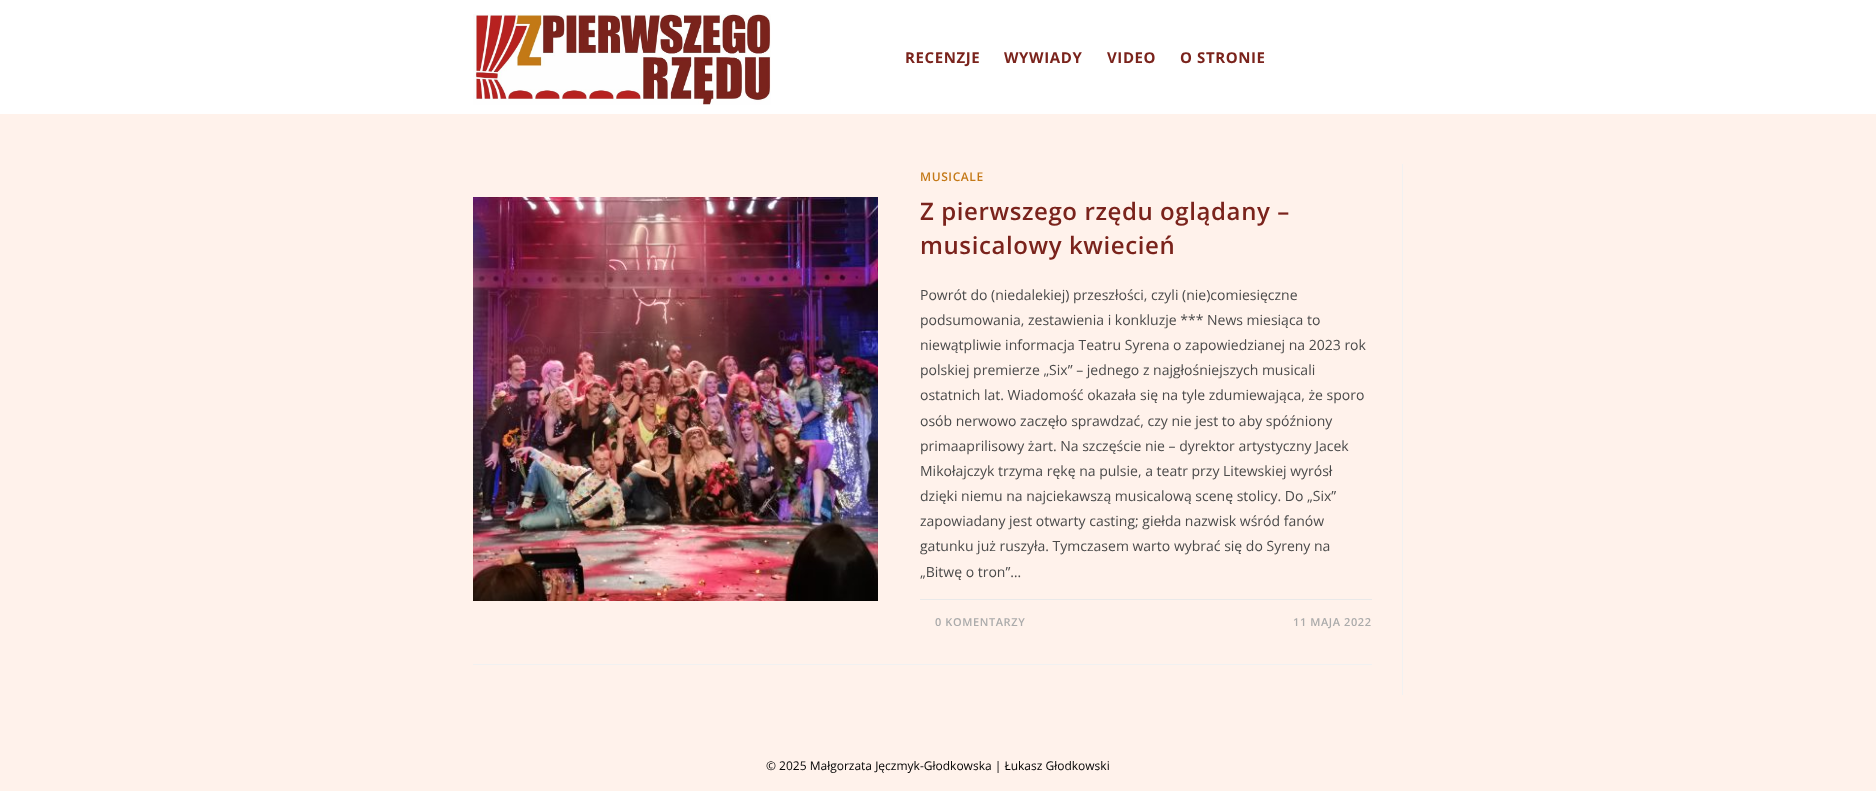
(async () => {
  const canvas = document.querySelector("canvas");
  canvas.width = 1876;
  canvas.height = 791;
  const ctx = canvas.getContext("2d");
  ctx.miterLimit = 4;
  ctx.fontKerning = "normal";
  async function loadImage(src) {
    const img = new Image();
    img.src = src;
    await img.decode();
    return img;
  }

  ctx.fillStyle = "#fff2eb";
  ctx.fillRect(0, 0, 1876, 791);
  ctx.fillStyle = "#ffffff";
  ctx.fillRect(0, 0, 1876, 114);
  ctx.drawImage(await loadImage("img/1.png"), 473, 14, 298, 91);
  ctx.fillStyle = "#f1f1f1";
  ctx.fillRect(1402, 164, 1, 531);
  ctx.fillRect(473, 664, 899, 1);
  ctx.drawImage(await loadImage("img/2.png"), 473, 197, 405, 404);
  ctx.fillStyle = "#e9e9e9";
  ctx.fillRect(920, 599, 452, 1);
  ctx.letterSpacing = "0.6px";
  ctx.font = "bold 15px Open Sans";
  ctx.fillStyle = "#7a231c";
  for (const [text, x, y] of [
    ["RECENZJE", 905, 63],
    ["WYWIADY", 1004, 63],
    ["VIDEO", 1107, 63],
    ["O STRONIE", 1180, 63],
  ]) {
    ctx.fillText(text, x, y);
  }
  ctx.font = "600 12px Open Sans";
  ctx.fillStyle = "#c47917";
  ctx.fillText("MUSICALE", 920, 181);
  ctx.font = "600 24px Open Sans";
  ctx.fillStyle = "#7a231c";
  ctx.fillText("Z pierwszego rzędu oglądany –", 920, 220);
  ctx.fillText("musicalowy kwiecień", 920, 254);
  ctx.letterSpacing = "0px";
  ctx.font = "14px Open Sans";
  ctx.fillStyle = "#4a4a4a";
  for (const [text, x, y] of [
    ["Powrót do (niedalekiej) przeszłości, czyli (nie)comiesięczne", 920, 300],
    ["podsumowania, zestawienia i konkluzje *** News miesiąca to", 920, 325],
    ["niewątpliwie informacja Teatru Syrena o zapowiedzianej na 2023 rok", 920, 350],
    ["polskiej premierze „Six” – jednego z najgłośniejszych musicali", 920, 375],
    ["ostatnich lat. Wiadomość okazała się na tyle zdumiewająca, że sporo", 920, 400],
    ["osób nerwowo zaczęło sprawdzać, czy nie jest to aby spóźniony", 920, 426],
    ["primaaprilisowy żart. Na szczęście nie – dyrektor artystyczny Jacek", 920, 451],
    ["Mikołajczyk trzyma rękę na pulsie, a teatr przy Litewskiej wyrósł", 920, 476],
    ["dzięki niemu na najciekawszą musicalową scenę stolicy. Do „Six”", 920, 501],
    ["zapowiadany jest otwarty casting; giełda nazwisk wśród fanów", 920, 526],
    ["gatunku już ruszyła. Tymczasem warto wybrać się do Syreny na", 920, 551],
    ["„Bitwę o tron”…", 920, 577],
  ]) {
    ctx.fillText(text, x, y);
  }
  ctx.letterSpacing = "0.6px";
  ctx.font = "600 11px Open Sans";
  ctx.fillStyle = "#ababab";
  ctx.fillText("0 KOMENTARZY", 935, 626);
  ctx.fillText("11 MAJA 2022", 1293, 626);
  ctx.letterSpacing = "0px";
  ctx.font = "12px Open Sans";
  ctx.fillStyle = "#000000";
  ctx.fillText("© 2025 Małgorzata Jęczmyk-Głodkowska | Łukasz Głodkowski", 766, 770);
})();
